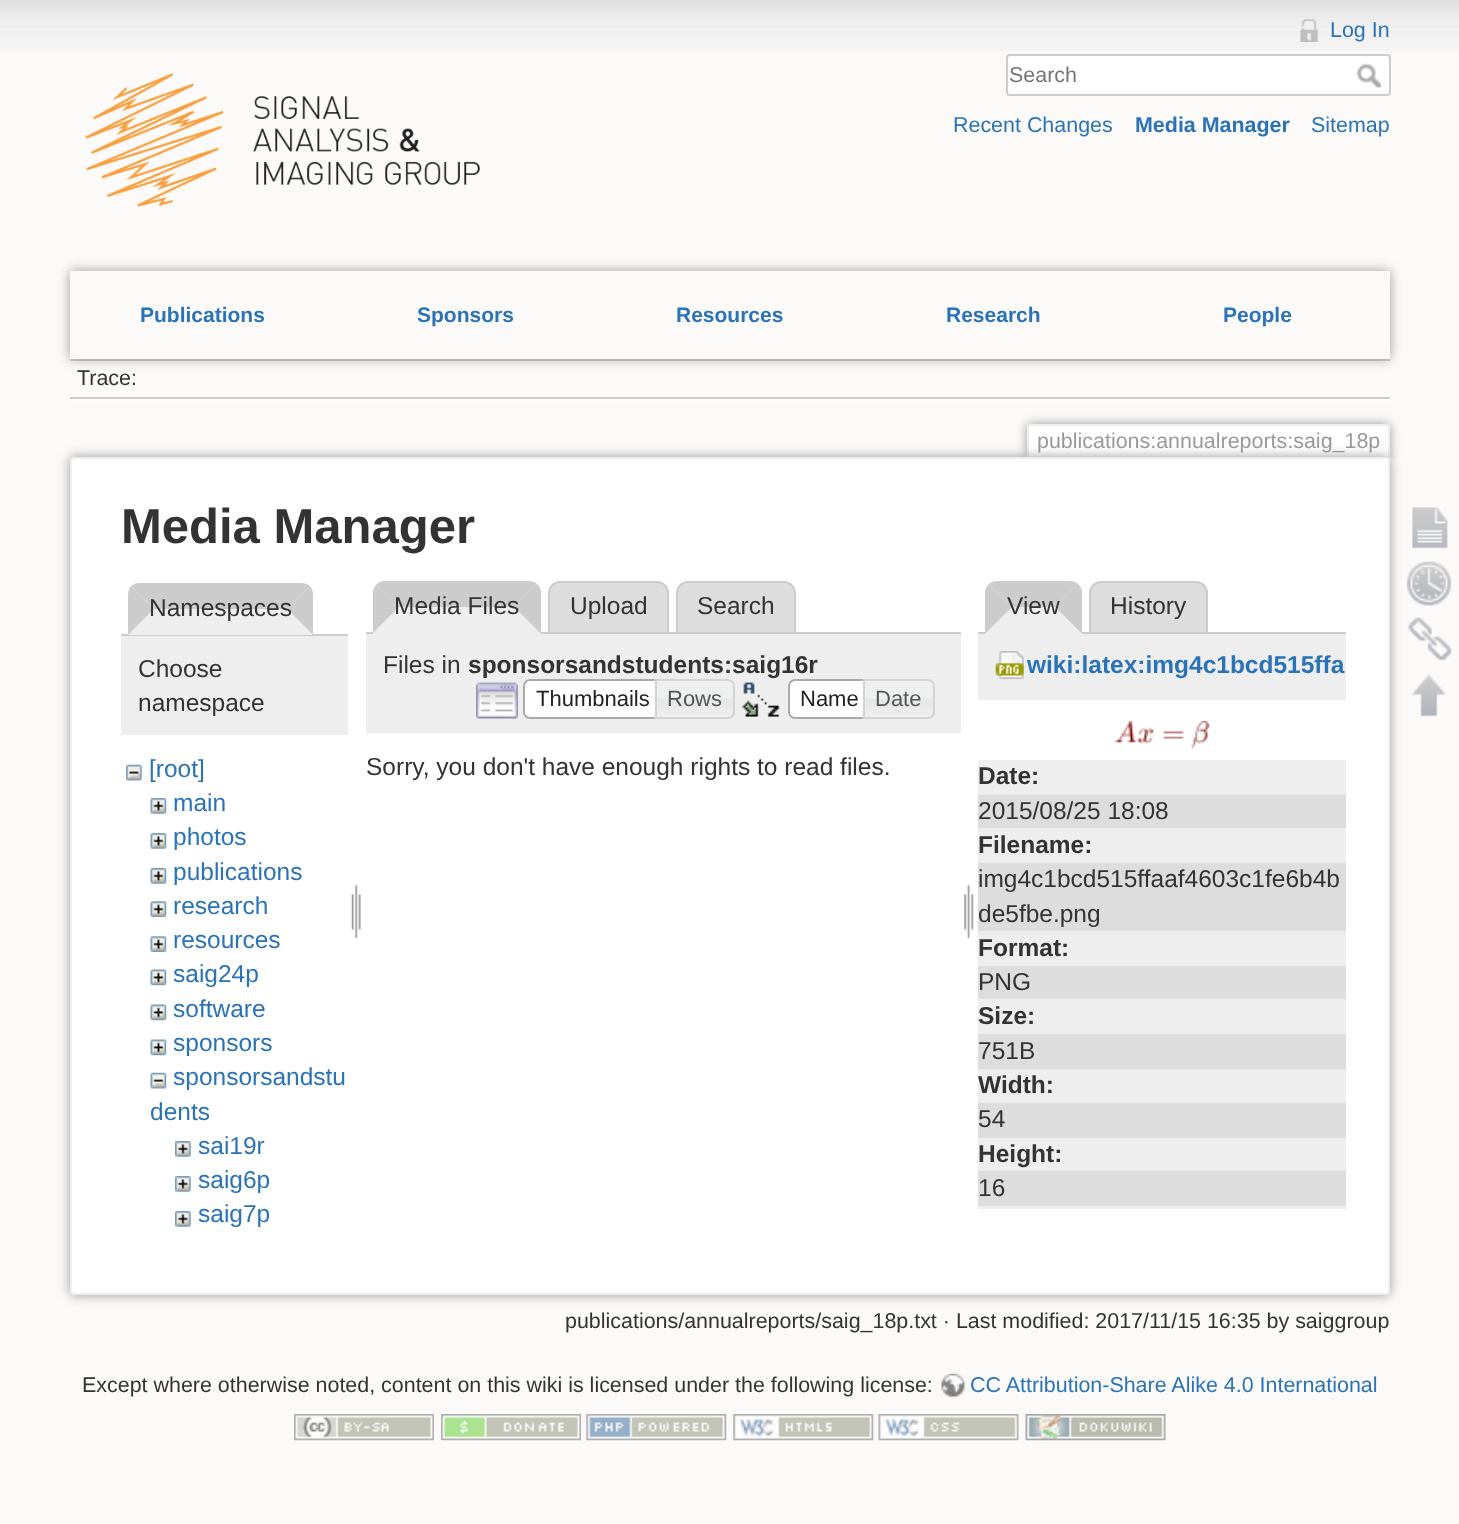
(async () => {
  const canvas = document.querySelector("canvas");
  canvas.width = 1459;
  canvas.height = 1524;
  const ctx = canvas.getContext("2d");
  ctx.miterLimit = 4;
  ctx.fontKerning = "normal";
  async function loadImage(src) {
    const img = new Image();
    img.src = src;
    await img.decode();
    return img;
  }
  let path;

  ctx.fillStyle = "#fbfaf9";
  ctx.fillRect(0, 0, 1459, 1524);
  ctx.drawImage(await loadImage("img/1.png"), 0, 0, 1459, 51);
  ctx.drawImage(await loadImage("img/2.png"), 85, 73, 395, 134);
  ctx.drawImage(await loadImage("img/3.png"), 1300, 19, 19, 23);
  ctx.fillStyle = "#ffffff";
  ctx.beginPath();
  ctx.roundRect(1007, 55, 383, 40, 3);
  ctx.fill();
  ctx.strokeStyle = "#cccccc";
  ctx.lineWidth = 2;
  ctx.stroke();
  ctx.drawImage(await loadImage("img/4.png"), 1356, 63, 25, 25);
  ctx.fillStyle = "#cccccc";
  ctx.fillRect(70, 359, 1320, 2);
  ctx.fillStyle = "#ffffff";
  ctx.fillRect(70, 361, 1320, 2);
  ctx.save();
  path = new Path2D("M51 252H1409V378H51ZM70 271H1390V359H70Z");
  ctx.clip(path, "evenodd");
  ctx.fillStyle = "#999999";
  ctx.filter = "blur(6px)";
  ctx.beginPath();
  ctx.rect(70, 271, 1320, 88);
  ctx.fill();
  ctx.filter = "none";
  ctx.restore();
  ctx.fillRect(70, 399, 1320, 2);
  ctx.fillStyle = "#cccccc";
  ctx.fillRect(70, 397, 1320, 2);
  ctx.save();
  ctx.beginPath();
  ctx.rect(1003, 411, 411, 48);
  ctx.clip();
  ctx.fillStyle = "#999999";
  ctx.filter = "blur(5.5px)";
  ctx.beginPath();
  ctx.roundRect(1027, 424, 363, 35, 4);
  ctx.fill();
  ctx.filter = "none";
  ctx.restore();
  ctx.fillStyle = "#ffffff";
  ctx.beginPath();
  ctx.roundRect(1029, 425, 359, 34, [2, 2, 0, 0]);
  ctx.fill();
  for (const [x, y, w, h, color] of [
    [1029, 424, 359, 2, "#eeeeee"],
    [1388, 425, 2, 34, "#eeeeee"],
    [1027, 425, 2, 34, "#eeeeee"],
  ]) {
    ctx.fillStyle = color;
    ctx.fillRect(x, y, w, h);
  }
  ctx.fillStyle = "#999999";
  ctx.filter = "blur(6px)";
  ctx.beginPath();
  ctx.roundRect(70, 457, 1320, 838, 4);
  ctx.fill();
  ctx.filter = "none";
  ctx.fillStyle = "#ffffff";
  ctx.beginPath();
  ctx.roundRect(71, 458, 1318, 836, 3);
  ctx.fill();
  ctx.strokeStyle = "#eeeeee";
  ctx.stroke();
  ctx.fillStyle = "#cccccc";
  path = new Path2D("M140 583C136 583 134 584 131 586L154 609H287L310 586C308 584 304 583 301 583Z");
  ctx.fill(path);
  ctx.fillRect(121, 634, 227, 2);
  path = new Path2D("M313 635V595C313 592 312 588 310 586L287 609Z");
  ctx.fill(path);
  ctx.fillStyle = "#eeeeee";
  path = new Path2D("M313 635L287 609H154L128 635Z");
  ctx.fill(path);
  ctx.fillStyle = "#cccccc";
  path = new Path2D("M131 586C129 588 128 592 128 595V635L154 609Z");
  ctx.fill(path);
  ctx.fillStyle = "#eeeeee";
  ctx.fillRect(121, 636, 227, 99);
  ctx.drawImage(await loadImage("img/5.png"), 126, 764, 16, 17);
  ctx.drawImage(await loadImage("img/6.png"), 150, 798, 17, 16);
  ctx.drawImage(await loadImage("img/6.png"), 150, 833, 17, 16);
  ctx.drawImage(await loadImage("img/6.png"), 150, 868, 17, 16);
  ctx.drawImage(await loadImage("img/7.png"), 150, 901, 17, 16);
  ctx.drawImage(await loadImage("img/7.png"), 150, 936, 17, 16);
  ctx.drawImage(await loadImage("img/8.png"), 150, 969, 17, 17);
  ctx.drawImage(await loadImage("img/8.png"), 150, 1004, 17, 17);
  ctx.drawImage(await loadImage("img/8.png"), 150, 1039, 17, 17);
  ctx.drawImage(await loadImage("img/9.png"), 150, 1072, 17, 17);
  ctx.drawImage(await loadImage("img/10.png"), 175, 1141, 16, 16);
  ctx.drawImage(await loadImage("img/10.png"), 175, 1176, 16, 16);
  ctx.drawImage(await loadImage("img/10.png"), 175, 1211, 16, 16);
  ctx.drawImage(await loadImage("img/11.png"), 351, 884, 10, 55);
  ctx.fillStyle = "#dddddd";
  ctx.beginPath();
  ctx.roundRect(549, 582, 119, 51, [11, 11, 0, 0]);
  ctx.fill();
  ctx.strokeStyle = "#cccccc";
  ctx.stroke();
  ctx.beginPath();
  ctx.roundRect(677, 582, 118, 51, [11, 11, 0, 0]);
  ctx.fill();
  ctx.stroke();
  ctx.fillStyle = "#cccccc";
  ctx.fillRect(366, 632, 595, 2);
  ctx.fillStyle = "#eeeeee";
  ctx.beginPath();
  ctx.roundRect(373, 581, 168, 53, [12, 12, 0, 0]);
  ctx.fill();
  ctx.fillStyle = "#cccccc";
  path = new Path2D("M385 581H528C532 581 535 582 537 584L514 607H399L376 585C378 582 381 581 385 581Z");
  ctx.fill(path);
  path = new Path2D("M537 584L514 607L541 634V591C540 588 539 586 537 584Z");
  ctx.fill(path);
  ctx.fillStyle = "#eeeeee";
  path = new Path2D("M541 634L514 607H399L373 634Z");
  ctx.fill(path);
  ctx.fillStyle = "#cccccc";
  path = new Path2D("M376 585C374 587 373 590 373 593V633L399 607Z");
  ctx.fill(path);
  ctx.fillStyle = "#eeeeee";
  ctx.fillRect(366, 634, 595, 99);
  ctx.drawImage(await loadImage("img/12.png"), 476, 682, 42, 37);
  ctx.fillStyle = "#ffffff";
  ctx.beginPath();
  ctx.roundRect(523, 679, 140, 40, [7, 0, 0, 7]);
  ctx.fill();
  ctx.drawImage(await loadImage("img/13.png"), 525, 717, 3, 2);
  ctx.beginPath();
  ctx.roundRect(524, 680, 138, 38, [6, 0, 0, 6]);
  ctx.strokeStyle = "#aaaaaa";
  ctx.stroke();
  ctx.drawImage(await loadImage("img/14.png"), 654, 679, 81, 40);
  ctx.beginPath();
  ctx.roundRect(656, 680, 78, 38, [0, 6, 6, 0]);
  ctx.strokeStyle = "#d3d3d3";
  ctx.stroke();
  ctx.drawImage(await loadImage("img/15.png"), 741, 682, 39, 35);
  ctx.beginPath();
  ctx.roundRect(788, 679, 84, 40, [7, 0, 0, 7]);
  ctx.fill();
  ctx.drawImage(await loadImage("img/16.png"), 787, 679, 6, 40);
  ctx.beginPath();
  ctx.roundRect(789, 680, 82, 38, [6, 0, 0, 6]);
  ctx.strokeStyle = "#aaaaaa";
  ctx.stroke();
  ctx.drawImage(await loadImage("img/17.png"), 862, 679, 72, 40);
  ctx.beginPath();
  ctx.roundRect(864, 680, 70, 38, [0, 6, 6, 0]);
  ctx.strokeStyle = "#d3d3d3";
  ctx.stroke();
  ctx.drawImage(await loadImage("img/18.png"), 964, 884, 10, 55);
  ctx.fillStyle = "#dddddd";
  ctx.beginPath();
  ctx.roundRect(1090, 582, 117, 51, [11, 11, 0, 0]);
  ctx.fill();
  ctx.strokeStyle = "#cccccc";
  ctx.stroke();
  ctx.fillStyle = "#cccccc";
  ctx.fillRect(978, 632, 368, 2);
  ctx.fillStyle = "#eeeeee";
  ctx.beginPath();
  ctx.roundRect(985, 581, 97, 53, [12, 12, 0, 0]);
  ctx.fill();
  ctx.fillStyle = "#cccccc";
  path = new Path2D("M998 581H1069C1072 581 1076 582 1078 584L1055 607H1012L989 584C991 582 994 581 998 581Z");
  ctx.fill(path);
  path = new Path2D("M1078 584L1055 607L1082 634V590C1081 588 1080 586 1078 584Z");
  ctx.fill(path);
  ctx.fillStyle = "#eeeeee";
  path = new Path2D("M1082 634L1055 607H1012L985 634Z");
  ctx.fill(path);
  ctx.fillStyle = "#cccccc";
  path = new Path2D("M985 634L1012 607L989 584C987 586 986 588 985 591Z");
  ctx.fill(path);
  ctx.fillStyle = "#eeeeee";
  ctx.fillRect(978, 634, 368, 66);
  ctx.drawImage(await loadImage("img/19.png"), 995, 651, 29, 28);
  ctx.drawImage(await loadImage("img/20.png"), 1114, 721, 96, 28);
  for (const [x, y, w, h, color] of [
    [978, 760, 368, 35, "#eeeeee"],
    [978, 795, 368, 33, "#dddddd"],
    [978, 828, 368, 35, "#eeeeee"],
    [978, 863, 368, 68, "#dddddd"],
    [978, 931, 368, 35, "#eeeeee"],
    [978, 966, 368, 33, "#dddddd"],
    [978, 999, 368, 35, "#eeeeee"],
    [978, 1034, 368, 35, "#dddddd"],
    [978, 1069, 368, 34, "#eeeeee"],
    [978, 1103, 368, 35, "#dddddd"],
    [978, 1138, 368, 33, "#eeeeee"],
    [978, 1171, 368, 35, "#dddddd"],
    [978, 1206, 368, 3, "#eeeeee"],
  ]) {
    ctx.fillStyle = color;
    ctx.fillRect(x, y, w, h);
  }
  ctx.drawImage(await loadImage("img/21.png"), 1412, 507, 36, 42);
  ctx.drawImage(await loadImage("img/22.png"), 1406, 561, 46, 45);
  ctx.drawImage(await loadImage("img/23.png"), 1408, 617, 44, 44);
  ctx.drawImage(await loadImage("img/24.png"), 1412, 675, 34, 42);
  ctx.drawImage(await loadImage("img/25.png"), 941, 1373, 25, 25);
  ctx.drawImage(await loadImage("img/26.png"), 294, 1414, 140, 27);
  ctx.drawImage(await loadImage("img/27.png"), 441, 1414, 140, 27);
  ctx.drawImage(await loadImage("img/28.png"), 586, 1414, 141, 27);
  ctx.drawImage(await loadImage("img/29.png"), 733, 1414, 141, 27);
  ctx.drawImage(await loadImage("img/30.png"), 878, 1414, 141, 27);
  ctx.drawImage(await loadImage("img/31.png"), 1025, 1414, 141, 27);
  ctx.font = "21.45px Liberation Sans";
  ctx.fillStyle = "#2b73b7";
  ctx.fillText("Log In", 1330, 37);
  ctx.fillStyle = "#757575";
  ctx.fillText("Search", 1009, 82);
  ctx.fillStyle = "#2b73b7";
  ctx.fillText("Recent Changes", 953, 132);
  ctx.font = "bold 21.45px Liberation Sans";
  ctx.fillText("Media Manager", 1135, 132);
  ctx.font = "21.45px Liberation Sans";
  ctx.fillText("Sitemap", 1311, 132);
  ctx.font = "bold 21px Liberation Sans";
  for (const [text, x, y] of [
    ["Publications", 140, 322],
    ["Sponsors", 417, 322],
    ["Resources", 676, 322],
    ["Research", 946, 322],
    ["People", 1223, 322],
  ]) {
    ctx.fillText(text, x, y);
  }
  ctx.font = "21.45px Liberation Sans";
  ctx.fillStyle = "#333333";
  ctx.fillText("Trace:", 77, 385);
  ctx.fillStyle = "#999999";
  ctx.fillText("publications:annualreports:saig_18p", 1037, 448);
  ctx.font = "bold 49px Liberation Sans";
  ctx.fillStyle = "#333333";
  ctx.fillText("Media Manager", 121, 543);
  ctx.font = "24.5px Liberation Sans";
  for (const [text, x, y] of [
    ["Namespaces", 149, 616],
    ["Choose", 138, 677],
    ["namespace", 138, 711],
  ]) {
    ctx.fillText(text, x, y);
  }
  ctx.fillStyle = "#2b73b7";
  for (const [text, x, y] of [
    ["[root]", 149, 777],
    ["main", 173, 811],
    ["photos", 173, 845],
    ["publications", 173, 880],
    ["research", 173, 914],
    ["resources", 173, 948],
    ["saig24p", 173, 982],
    ["software", 173, 1017],
    ["sponsors", 173, 1051],
    ["sponsorsandstu", 173, 1085],
    ["dents", 150, 1120],
    ["sai19r", 198, 1154],
    ["saig6p", 198, 1188],
    ["saig7p", 198, 1222],
  ]) {
    ctx.fillText(text, x, y);
  }
  ctx.fillStyle = "#333333";
  for (const [text, x, y] of [
    ["Media Files", 394, 614],
    ["Upload", 570, 614],
    ["Search", 697, 614],
    ["Files in", 383, 673],
  ]) {
    ctx.fillText(text, x, y);
  }
  ctx.font = "bold 24.5px Liberation Sans";
  ctx.fillText("sponsorsandstudents:saig16r", 468, 673);
  ctx.font = "22px Liberation Sans";
  ctx.fillStyle = "#212121";
  ctx.fillText("Thumbnails", 536, 706);
  ctx.fillStyle = "#555555";
  ctx.fillText("Rows", 667, 706);
  ctx.fillStyle = "#212121";
  ctx.fillText("Name", 800, 706);
  ctx.fillStyle = "#555555";
  ctx.fillText("Date", 875, 706);
  ctx.font = "24.5px Liberation Sans";
  ctx.fillStyle = "#333333";
  for (const [text, x, y] of [
    ["Sorry, you don't have enough rights to read files.", 366, 775],
    ["View", 1007, 614],
    ["History", 1110, 614],
  ]) {
    ctx.fillText(text, x, y);
  }
  ctx.font = "bold 24.5px Liberation Sans";
  ctx.fillStyle = "#2b73b7";
  ctx.fillText("wiki:latex:img4c1bcd515ffa", 1027, 673);
  ctx.fillStyle = "#333333";
  ctx.fillText("Date:", 978, 784);
  ctx.font = "24.5px Liberation Sans";
  ctx.fillText("2015/08/25 18:08", 978, 819);
  ctx.font = "bold 24.5px Liberation Sans";
  ctx.fillText("Filename:", 978, 853);
  ctx.font = "24.5px Liberation Sans";
  ctx.fillText("img4c1bcd515ffaaf4603c1fe6b4b", 978, 887);
  ctx.fillText("de5fbe.png", 978, 922);
  ctx.font = "bold 24.5px Liberation Sans";
  ctx.fillText("Format:", 978, 956);
  ctx.font = "24.5px Liberation Sans";
  ctx.fillText("PNG", 978, 990);
  ctx.font = "bold 24.5px Liberation Sans";
  ctx.fillText("Size:", 978, 1024);
  ctx.font = "24.5px Liberation Sans";
  ctx.fillText("751B", 978, 1059);
  ctx.font = "bold 24.5px Liberation Sans";
  ctx.fillText("Width:", 978, 1093);
  ctx.font = "24.5px Liberation Sans";
  ctx.fillText("54", 978, 1127);
  ctx.font = "bold 24.5px Liberation Sans";
  ctx.fillText("Height:", 978, 1162);
  ctx.font = "24.5px Liberation Sans";
  ctx.fillText("16", 978, 1196);
  ctx.font = "21.45px Liberation Sans";
  ctx.fillText("publications/annualreports/saig_18p.txt · Last modified: 2017/11/15 16:35 by saiggroup", 565, 1328);
  ctx.fillText("Except where otherwise noted, content on this wiki is licensed under the following license:", 82, 1392);
  ctx.fillStyle = "#2b73b7";
  ctx.fillText("CC Attribution-Share Alike 4.0 International", 970, 1392);
})();
